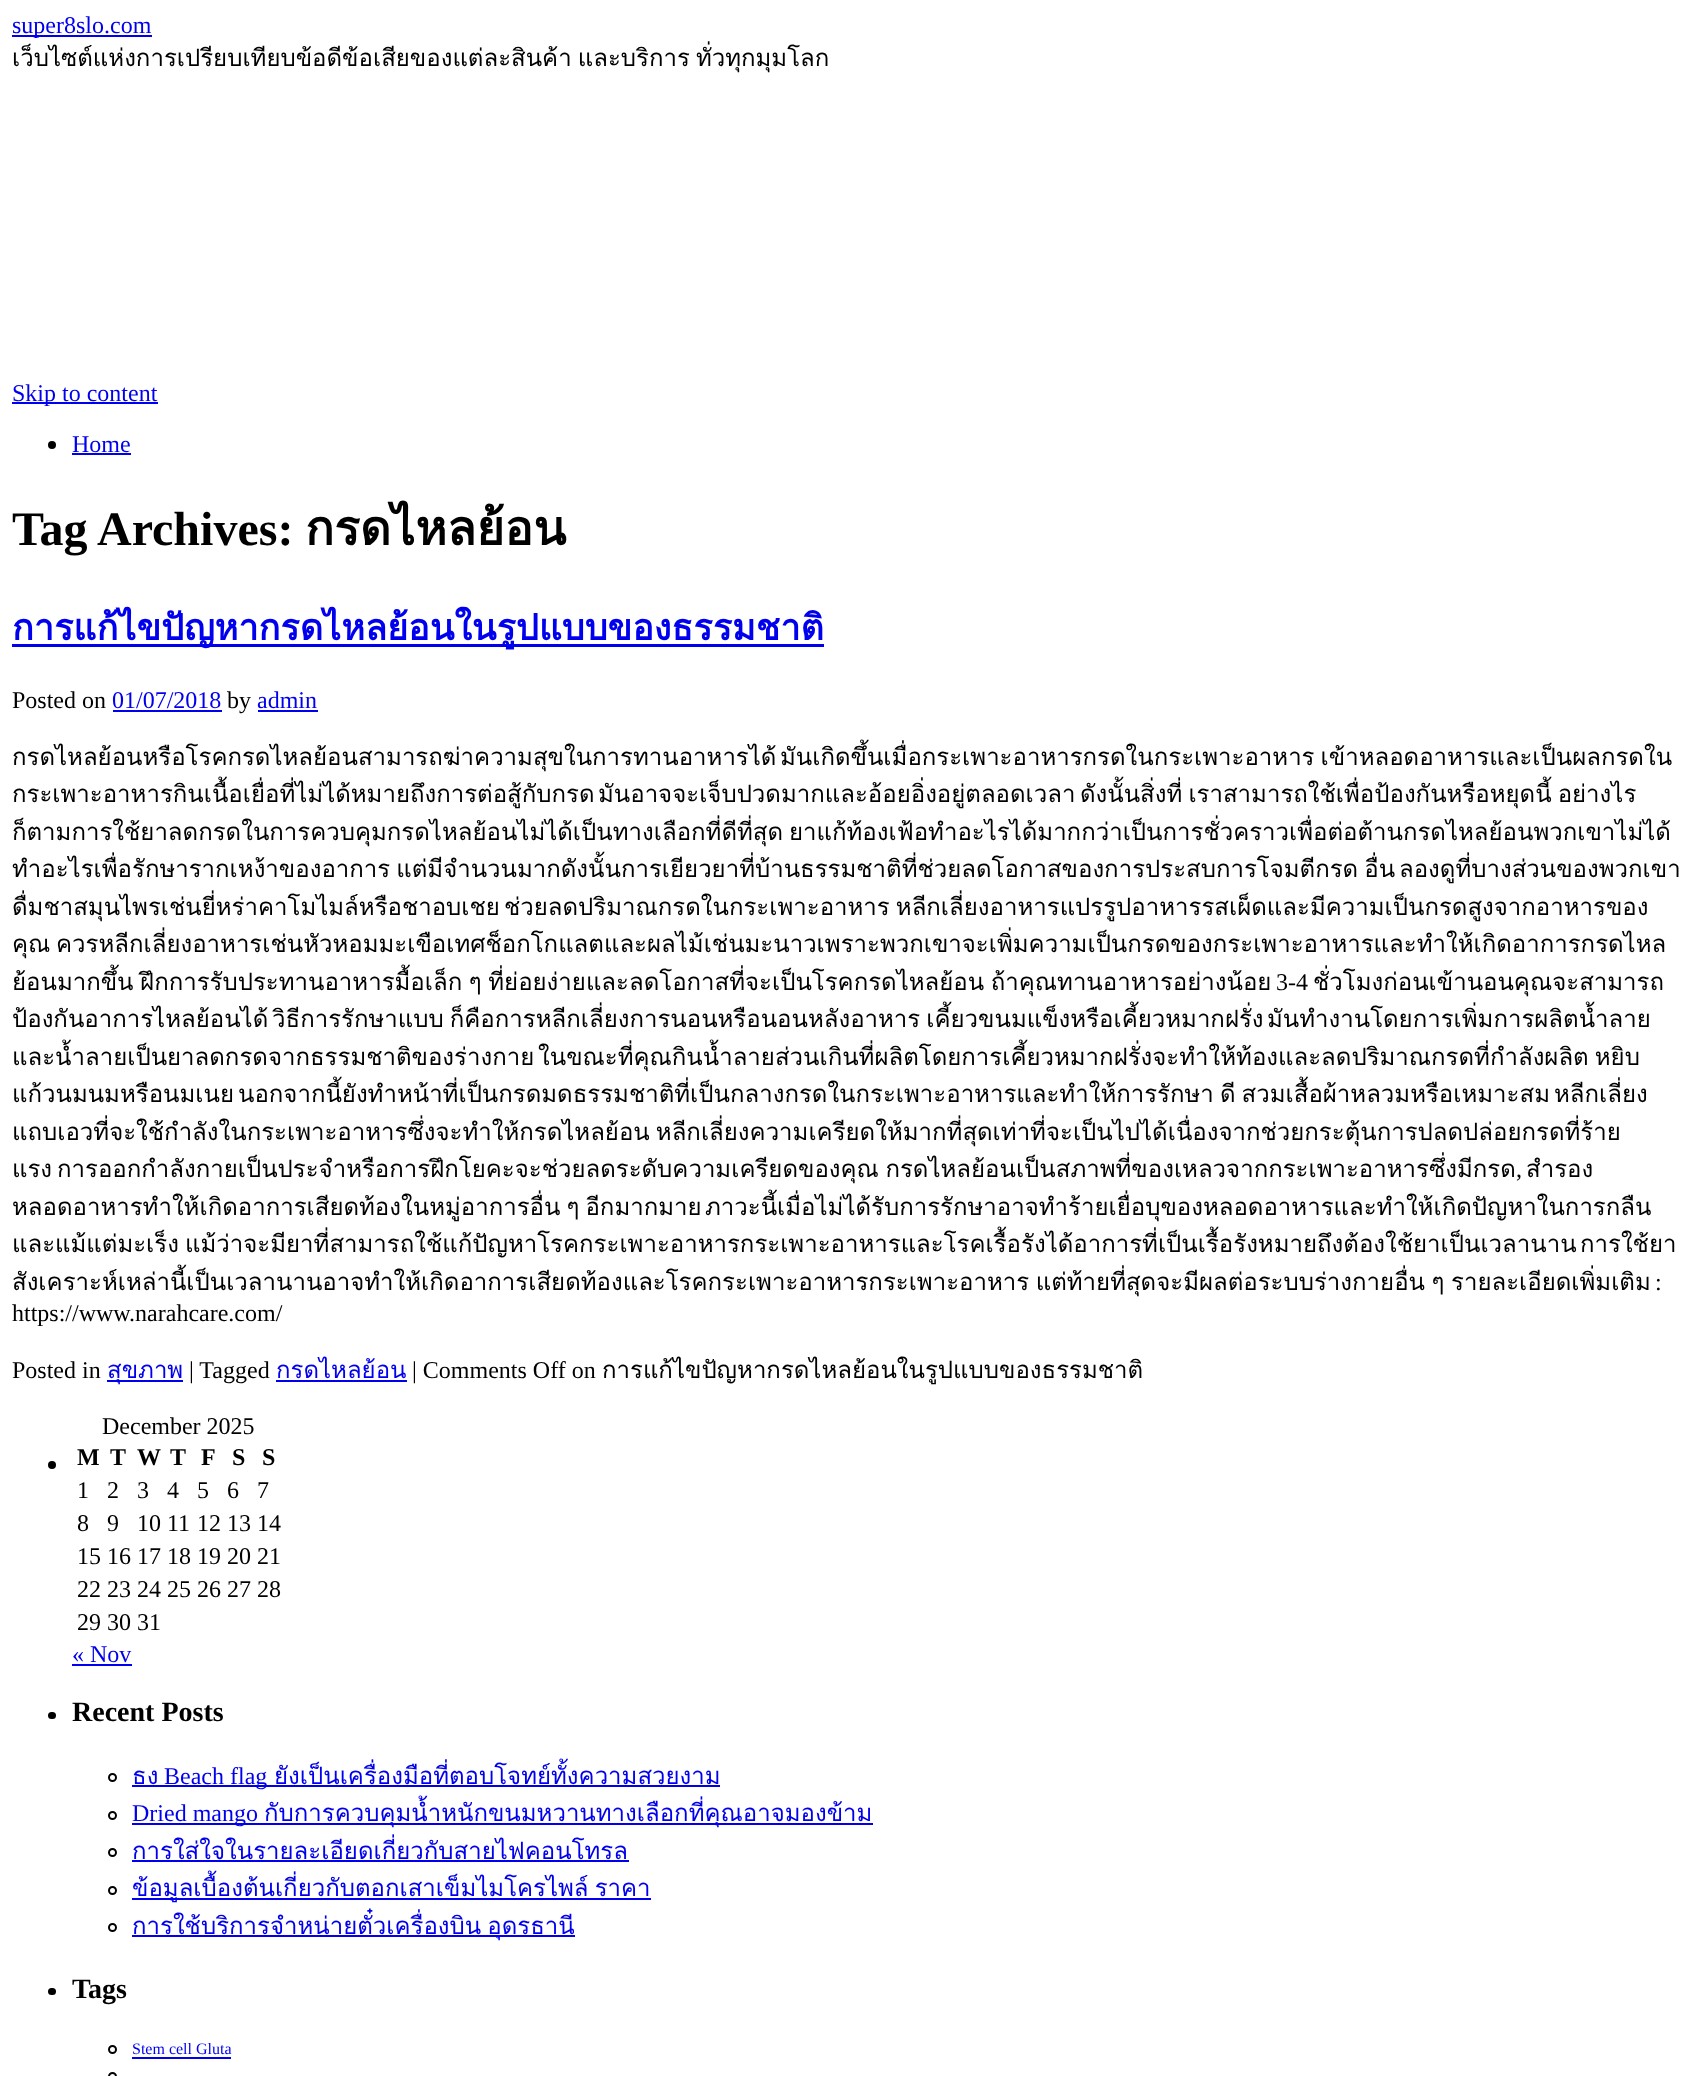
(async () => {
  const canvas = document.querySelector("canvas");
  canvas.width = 1694;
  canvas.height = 2076;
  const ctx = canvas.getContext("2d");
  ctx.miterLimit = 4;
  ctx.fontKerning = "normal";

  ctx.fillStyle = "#ffffff";
  ctx.fillRect(0, 0, 1694, 2076);
  ctx.fillStyle = "#0000ee";
  ctx.fillRect(12, 35, 140, 2);
  ctx.fillRect(12, 402, 146, 2);
  ctx.fillStyle = "#000000";
  ctx.beginPath();
  ctx.arc(52, 445, 4, 0, Math.PI * 2);
  ctx.fill();
  for (const [x, y, w, h, color] of [
    [72, 453, 59, 2, "#0000ee"],
    [12, 644, 812, 3, "#0000ee"],
    [113, 710, 109, 2, "#0000ee"],
    [258, 710, 60, 2, "#0000ee"],
    [107, 1380, 76, 2, "#0000ee"],
    [276, 1380, 131, 2, "#0000ee"],
  ]) {
    ctx.fillStyle = color;
    ctx.fillRect(x, y, w, h);
  }
  ctx.fillStyle = "#000000";
  ctx.beginPath();
  ctx.arc(52, 1465, 4, 0, Math.PI * 2);
  ctx.fill();
  ctx.fillStyle = "#0000ee";
  ctx.fillRect(72, 1664, 60, 2);
  ctx.fillStyle = "#000000";
  ctx.beginPath();
  ctx.roundRect(48, 1712, 8, 7, 3.5);
  ctx.fill();
  ctx.beginPath();
  ctx.arc(112.5, 1777.5, 3.5, 0, Math.PI * 2);
  ctx.strokeStyle = "#000000";
  ctx.lineWidth = 2;
  ctx.stroke();
  ctx.fillStyle = "#0000ee";
  ctx.fillRect(132, 1785, 588, 2);
  ctx.beginPath();
  ctx.arc(112.5, 1815.5, 3.5, 0, Math.PI * 2);
  ctx.stroke();
  ctx.fillRect(132, 1823, 741, 2);
  ctx.beginPath();
  ctx.arc(112.5, 1852.5, 3.5, 0, Math.PI * 2);
  ctx.stroke();
  ctx.fillRect(132, 1860, 497, 2);
  ctx.beginPath();
  ctx.arc(112.5, 1890.5, 3.5, 0, Math.PI * 2);
  ctx.stroke();
  ctx.fillRect(132, 1898, 519, 2);
  ctx.beginPath();
  ctx.arc(112.5, 1927.5, 3.5, 0, Math.PI * 2);
  ctx.stroke();
  ctx.fillRect(132, 1935, 443, 2);
  ctx.fillStyle = "#000000";
  ctx.beginPath();
  ctx.roundRect(48, 1988, 8, 7, 3.5);
  ctx.fill();
  ctx.beginPath();
  ctx.arc(112.5, 2049.5, 3.5, 0, Math.PI * 2);
  ctx.stroke();
  ctx.fillStyle = "#0000ee";
  ctx.fillRect(132, 2057, 99, 2);
  ctx.beginPath();
  ctx.arc(112.5, 2076.5, 3.5, 0, Math.PI * 2);
  ctx.stroke();
  ctx.font = "24px Liberation Serif";
  ctx.fillText("super8slo.com", 12, 33);
  ctx.wordSpacing = "-2px";
  ctx.font = "24px Loma";
  ctx.fillStyle = "#000000";
  ctx.fillText("เว็บไซต์แห่งการเปรียบเทียบข้อดีข้อเสียของแต่ละสินค้า และบริการ ทั่วทุกมุมโลก", 12, 66);
  ctx.wordSpacing = "0px";
  ctx.font = "24px Liberation Serif";
  ctx.fillStyle = "#0000ee";
  ctx.fillText("Skip to content", 12, 401);
  ctx.fillText("Home", 72, 452);
  ctx.font = "bold 48px Liberation Serif";
  ctx.fillStyle = "#000000";
  ctx.fillText("Tag Archives:", 12, 545);
  ctx.font = "bold 48px Loma";
  ctx.fillText("กรดไหลย้อน", 305, 545);
  ctx.font = "bold 36px Loma";
  ctx.fillStyle = "#0000ee";
  ctx.fillText("การแก้ไขปัญหากรดไหลย้อนในรูปแบบของธรรมชาติ", 12, 640);
  ctx.font = "24px Liberation Serif";
  ctx.fillStyle = "#000000";
  ctx.fillText("Posted on", 12, 708);
  ctx.fillStyle = "#0000ee";
  ctx.fillText("01/07/2018", 112, 708);
  ctx.fillStyle = "#000000";
  ctx.fillText("by", 227, 708);
  ctx.fillStyle = "#0000ee";
  ctx.fillText("admin", 257, 708);
  ctx.font = "24px Loma";
  ctx.fillStyle = "#000000";
  ctx.fillText("กรดไหลย้อนหรือโรคกรดไหลย้อนสามารถฆ่าความสุขในการทานอาหารได้", 12, 765);
  ctx.wordSpacing = "-2px";
  ctx.fillText("มันเกิดขึ้นเมื่อกระเพาะอาหารกรดในกระเพาะอาหาร เข้าหลอดอาหารและเป็นผลกรดใน", 780, 765);
  ctx.wordSpacing = "0px";
  ctx.fillText("กระเพาะอาหารกินเนื้อเยื่อที่ไม่ได้หมายถึงการต่อสู้กับกรด", 12, 802);
  ctx.fillText("มันอาจจะเจ็บปวดมากและอ้อยอิ่งอยู่ตลอดเวลา", 598, 802);
  ctx.wordSpacing = "-2px";
  ctx.fillText("ดังนั้นสิ่งที่ เราสามารถใช้เพื่อป้องกันหรือหยุดนี้ อย่างไร", 1080, 802);
  ctx.wordSpacing = "0px";
  ctx.fillText("ก็ตามการใช้ยาลดกรดในการควบคุมกรดไหลย้อนไม่ได้เป็นทางเลือกที่ดีที่สุด", 12, 840);
  ctx.fillText("ยาแก้ท้องเฟ้อทำอะไรได้มากกว่าเป็นการชั่วคราวเพื่อต่อต้านกรดไหลย้อนพวกเขาไม่ได้", 789, 840);
  ctx.wordSpacing = "-2px";
  ctx.fillText("ทำอะไรเพื่อรักษารากเหง้าของอาการ แต่มีจำนวนมากดังนั้นการเยียวยาที่บ้านธรรมชาติที่ช่วยลดโอกาสของการประสบการโจมตีกรด อื่น", 12, 877);
  ctx.wordSpacing = "0px";
  ctx.fillText("ลองดูที่บางส่วนของพวกเขา", 1399, 877);
  ctx.fillText("ดื่มชาสมุนไพรเช่นยี่หร่าคาโมไมล์หรือชาอบเชย", 12, 915);
  ctx.wordSpacing = "-2px";
  ctx.fillText("ช่วยลดปริมาณกรดในกระเพาะอาหาร หลีกเลี่ยงอาหารแปรรูปอาหารรสเผ็ดและมีความเป็นกรดสูงจากอาหารของ", 504, 915);
  ctx.wordSpacing = "0px";
  ctx.fillText("คุณ", 12, 952);
  ctx.fillText("ควรหลีกเลี่ยงอาหารเช่นหัวหอมมะเขือเทศช็อกโกแลตและผลไม้เช่นมะนาวเพราะพวกเขาจะเพิ่มความเป็นกรดของกระเพาะอาหารและทำให้เกิดอาการกรดไหล", 56, 952);
  ctx.wordSpacing = "-1.5px";
  ctx.fillText("ย้อนมากขึ้น ฝึกการรับประทานอาหารมื้อเล็ก ๆ ที่ย่อยง่ายและลดโอกาสที่จะเป็นโรคกรดไหลย้อน ถ้าคุณทานอาหารอย่างน้อย", 12, 990);
  ctx.wordSpacing = "0px";
  ctx.font = "24px Liberation Serif";
  ctx.fillText("3-4", 1276, 990);
  ctx.font = "24px Loma";
  ctx.fillText("ชั่วโมงก่อนเข้านอนคุณจะสามารถ", 1313, 990);
  ctx.fillText("ป้องกันอาการไหลย้อนได้", 12, 1027);
  ctx.wordSpacing = "-2px";
  ctx.fillText("วิธีการรักษาแบบ ก็คือการหลีกเลี่ยงการนอนหรือนอนหลังอาหาร เคี้ยวขนมแข็งหรือเคี้ยวหมากฝรั่ง", 272, 1027);
  ctx.wordSpacing = "0px";
  ctx.fillText("มันทำงานโดยการเพิ่มการผลิตน้ำลาย", 1267, 1027);
  ctx.fillText("และน้ำลายเป็นยาลดกรดจากธรรมชาติของร่างกาย", 12, 1065);
  ctx.wordSpacing = "-2px";
  ctx.fillText("ในขณะที่คุณกินน้ำลายส่วนเกินที่ผลิตโดยการเคี้ยวหมากฝรั่งจะทำให้ท้องและลดปริมาณกรดที่กำลังผลิต หยิบ", 538, 1065);
  ctx.wordSpacing = "0px";
  ctx.fillText("แก้วนมนมหรือนมเนย", 12, 1102);
  ctx.wordSpacing = "-2px";
  ctx.fillText("นอกจากนี้ยังทำหน้าที่เป็นกรดมดธรรมชาติที่เป็นกลางกรดในกระเพาะอาหารและทำให้การรักษา ดี สวมเสื้อผ้าหลวมหรือเหมาะสม", 238, 1102);
  ctx.wordSpacing = "0px";
  ctx.fillText("หลีกเลี่ยง", 1554, 1102);
  ctx.wordSpacing = "-2px";
  ctx.fillText("แถบเอวที่จะใช้กำลังในกระเพาะอาหารซึ่งจะทำให้กรดไหลย้อน หลีกเลี่ยงความเครียดให้มากที่สุดเท่าที่จะเป็นไปได้เนื่องจากช่วยกระตุ้นการปลดปล่อยกรดที่ร้าย", 12, 1140);
  ctx.wordSpacing = "0px";
  ctx.fillText("แรง", 12, 1177);
  ctx.wordSpacing = "-1.5px";
  ctx.fillText("การออกกำลังกายเป็นประจำหรือการฝึกโยคะจะช่วยลดระดับความเครียดของคุณ กรดไหลย้อนเป็นสภาพที่ของเหลวจากกระเพาะอาหารซึ่งมีกรด", 57, 1177);
  ctx.wordSpacing = "0px";
  ctx.font = "24px Liberation Serif";
  ctx.fillText(",", 1516, 1177);
  ctx.font = "24px Loma";
  ctx.fillText("สำรอง", 1526, 1177);
  ctx.wordSpacing = "-2px";
  ctx.fillText("หลอดอาหารทำให้เกิดอาการเสียดท้องในหมู่อาการอื่น ๆ อีกมากมาย", 12, 1215);
  ctx.wordSpacing = "0px";
  ctx.fillText("ภาวะนี้เมื่อไม่ได้รับการรักษาอาจทำร้ายเยื่อบุของหลอดอาหารและทำให้เกิดปัญหาในการกลืน", 705, 1215);
  ctx.wordSpacing = "-2px";
  ctx.fillText("และแม้แต่มะเร็ง แม้ว่าจะมียาที่สามารถใช้แก้ปัญหาโรคกระเพาะอาหารกระเพาะอาหารและโรคเรื้อรังได้อาการที่เป็นเรื้อรังหมายถึงต้องใช้ยาเป็นเวลานาน", 12, 1252);
  ctx.wordSpacing = "0px";
  ctx.fillText("การใช้ยา", 1580, 1252);
  ctx.wordSpacing = "-1.5px";
  ctx.fillText("สังเคราะห์เหล่านี้เป็นเวลานานอาจทำให้เกิดอาการเสียดท้องและโรคกระเพาะอาหารกระเพาะอาหาร แต่ท้ายที่สุดจะมีผลต่อระบบร่างกายอื่น ๆ รายละเอียดเพิ่มเติม", 12, 1290);
  ctx.wordSpacing = "0px";
  ctx.font = "24px Liberation Serif";
  for (const [text, x, y] of [
    [":", 1655, 1290],
    ["https://www.narahcare.com/", 12, 1321],
    ["Posted in", 12, 1378],
  ]) {
    ctx.fillText(text, x, y);
  }
  ctx.font = "24px Loma";
  ctx.fillStyle = "#0000ee";
  ctx.fillText("สุขภาพ", 107, 1378);
  ctx.font = "24px Liberation Serif";
  ctx.fillStyle = "#000000";
  ctx.fillText("| Tagged", 189, 1378);
  ctx.font = "24px Loma";
  ctx.fillStyle = "#0000ee";
  ctx.fillText("กรดไหลย้อน", 276, 1378);
  ctx.font = "24px Liberation Serif";
  ctx.fillStyle = "#000000";
  ctx.fillText("| Comments Off on", 412, 1378);
  ctx.font = "24px Loma";
  ctx.fillText("การแก้ไขปัญหากรดไหลย้อนในรูปแบบของธรรมชาติ", 602, 1378);
  ctx.font = "24px Liberation Serif";
  ctx.fillText("December 2025", 102, 1434);
  ctx.font = "bold 24px Liberation Serif";
  for (const [text, x, y] of [
    ["M", 77, 1465],
    ["T", 110, 1465],
    ["W", 137, 1465],
    ["T", 170, 1465],
    ["F", 201, 1465],
    ["S", 232, 1465],
    ["S", 262, 1465],
  ]) {
    ctx.fillText(text, x, y);
  }
  ctx.font = "24px Liberation Serif";
  for (const [text, x, y] of [
    ["1", 77, 1498],
    ["2", 107, 1498],
    ["3", 137, 1498],
    ["4", 167, 1498],
    ["5", 197, 1498],
    ["6", 227, 1498],
    ["7", 257, 1498],
    ["8", 77, 1531],
    ["9", 107, 1531],
    ["10 11", 137, 1531],
    ["12 13 14", 197, 1531],
    ["15 16 17 18 19 20 21", 77, 1564],
    ["22 23 24 25 26 27 28", 77, 1597],
    ["29 30 31", 77, 1630],
  ]) {
    ctx.fillText(text, x, y);
  }
  ctx.fillStyle = "#0000ee";
  ctx.fillText("« Nov", 72, 1662);
  ctx.font = "bold 28px Liberation Serif";
  ctx.fillStyle = "#000000";
  ctx.fillText("Recent Posts", 72, 1721);
  ctx.font = "24px Loma";
  ctx.fillStyle = "#0000ee";
  ctx.fillText("ธง", 132, 1784);
  ctx.font = "24px Liberation Serif";
  ctx.fillText("Beach flag", 164, 1784);
  ctx.font = "24px Loma";
  ctx.fillText("ยังเป็นเครื่องมือที่ตอบโจทย์ทั้งความสวยงาม", 274, 1784);
  ctx.font = "24px Liberation Serif";
  ctx.fillText("Dried mango", 132, 1821);
  ctx.font = "24px Loma";
  ctx.fillText("กับการควบคุมน้ำหนักขนมหวานทางเลือกที่คุณอาจมองข้าม", 264, 1821);
  ctx.fillText("การใส่ใจในรายละเอียดเกี่ยวกับสายไฟคอนโทรล", 132, 1859);
  ctx.wordSpacing = "-2px";
  ctx.fillText("ข้อมูลเบื้องต้นเกี่ยวกับตอกเสาเข็มไมโครไพล์ ราคา", 132, 1896);
  ctx.fillText("การใช้บริการจำหน่ายตั๋วเครื่องบิน อุดรธานี", 132, 1934);
  ctx.wordSpacing = "0px";
  ctx.font = "bold 28px Liberation Serif";
  ctx.fillStyle = "#000000";
  ctx.fillText("Tags", 72, 1998);
  ctx.font = "16px Liberation Serif";
  ctx.fillStyle = "#0000ee";
  ctx.fillText("Stem cell Gluta", 132, 2054);
})();
